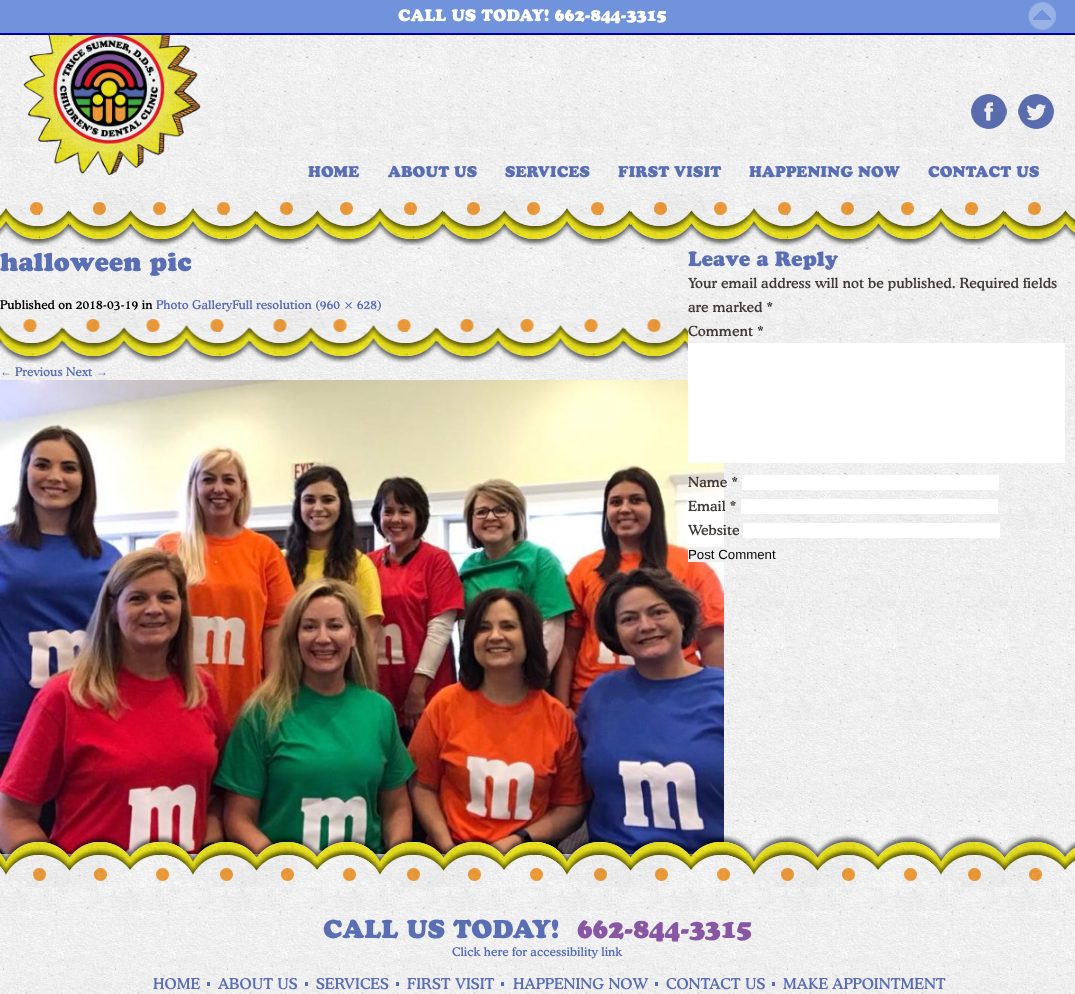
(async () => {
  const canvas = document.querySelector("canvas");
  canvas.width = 1075;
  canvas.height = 994;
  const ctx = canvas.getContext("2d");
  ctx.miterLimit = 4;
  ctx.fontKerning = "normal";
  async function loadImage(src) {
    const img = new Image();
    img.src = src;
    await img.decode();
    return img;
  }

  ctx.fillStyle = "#ffffff";
  ctx.fillRect(0, 0, 1075, 994);
  ctx.drawImage(await loadImage("img/1.png"), 0, 35, 1075, 959);
  ctx.fillStyle = "#7093db";
  ctx.fillRect(0, 0, 1075, 33);
  ctx.fillStyle = "#00009c";
  ctx.fillRect(0, 33, 1075, 2);
  ctx.drawImage(await loadImage("img/2.png"), 1028, 1, 29, 30);
  ctx.drawImage(await loadImage("img/3.png"), 0, 194, 1075, 52);
  ctx.drawImage(await loadImage("img/4.png"), 23, 35, 178, 140);
  ctx.drawImage(await loadImage("img/5.png"), 971, 94, 36, 35);
  ctx.drawImage(await loadImage("img/6.png"), 1018, 94, 36, 35);
  ctx.drawImage(await loadImage("img/7.png"), 0, 311, 688, 52);
  ctx.drawImage(await loadImage("img/8.png"), 0, 380, 724, 474);
  for (const [x, y, w, h, color] of [
    [688, 343, 377, 120, "#ffffff"],
    [742, 475, 257, 15, "#ffffff"],
    [741, 499, 257, 15, "#ffffff"],
    [743, 523, 257, 15, "#ffffff"],
    [688, 547, 88, 15, "#efefef"],
  ]) {
    ctx.fillStyle = color;
    ctx.fillRect(x, y, w, h);
  }
  ctx.drawImage(await loadImage("img/9.png"), 0, 834, 1075, 53);
  for (const [x, y, w, h, color] of [
    [207, 982, 3, 4, "#5a6eb4"],
    [305, 982, 3, 4, "#5a6eb4"],
    [396, 982, 3, 4, "#5a6eb4"],
    [501, 982, 3, 4, "#5a6eb4"],
    [655, 982, 3, 4, "#5a6eb4"],
    [772, 982, 3, 4, "#5a6eb4"],
  ]) {
    ctx.fillStyle = color;
    ctx.fillRect(x, y, w, h);
  }
  ctx.font = "900 16px 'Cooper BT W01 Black'";
  ctx.fillStyle = "#ffffff";
  ctx.fillText("CALL US TODAY! 662-844-3315", 398, 21);
  ctx.font = "900 15px 'Cooper BT W01 Black'";
  ctx.fillStyle = "#5a6eb4";
  for (const [text, x, y] of [
    ["HOME", 308, 177],
    ["ABOUT US", 388, 177],
    ["SERVICES", 505, 177],
    ["FIRST VISIT", 618, 177],
    ["HAPPENING NOW", 749, 177],
    ["CONTACT US", 928, 177],
  ]) {
    ctx.fillText(text, x, y);
  }
  ctx.font = "900 25px 'Cooper BT W01 Black'";
  ctx.fillText("halloween pic", 0, 271);
  ctx.font = "500 12px 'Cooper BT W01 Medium'";
  ctx.fillStyle = "#000000";
  ctx.fillText("Published on 2018-03-19 in", 0, 309);
  ctx.fillStyle = "#5a6eb4";
  ctx.fillText("Photo GalleryFull resolution (960 × 628)", 156, 309);
  ctx.font = "12px Liberation Serif";
  ctx.fillText("←", 0, 376);
  ctx.font = "500 12px 'Cooper BT W01 Medium'";
  ctx.fillText("Previous Next", 15, 376);
  ctx.font = "12px Liberation Serif";
  ctx.fillText("→", 96, 376);
  ctx.font = "900 20px 'Cooper BT W01 Black'";
  ctx.fillText("Leave a Reply", 688, 266);
  ctx.font = "500 14px 'Cooper BT W01 Medium'";
  ctx.fillStyle = "#413c39";
  for (const [text, x, y] of [
    ["Your email address will not be published. Required fields", 688, 288],
    ["are marked *", 688, 312],
    ["Comment *", 688, 336],
    ["Name *", 688, 487],
    ["Email *", 688, 511],
    ["Website", 688, 535],
  ]) {
    ctx.fillText(text, x, y);
  }
  ctx.font = "13.25px Liberation Sans";
  ctx.fillStyle = "#000000";
  ctx.fillText("Post Comment", 688, 559);
  ctx.font = "900 25px 'Cooper BT W01 Black'";
  ctx.fillStyle = "#5a6eb4";
  ctx.fillText("CALL US TODAY!", 323, 938);
  ctx.fillStyle = "#8956a3";
  ctx.fillText("662-844-3315", 577, 938);
  ctx.font = "500 12px 'Cooper BT W01 Medium'";
  ctx.fillStyle = "#5a6eb4";
  ctx.fillText("Click here for accessibility link", 452, 956);
  ctx.font = "500 15px 'Cooper BT W01 Medium'";
  for (const [text, x, y] of [
    ["HOME", 153, 989],
    ["ABOUT US", 218, 989],
    ["SERVICES", 316, 989],
    ["FIRST VISIT", 407, 989],
    ["HAPPENING NOW", 513, 989],
    ["CONTACT US", 666, 989],
    ["MAKE APPOINTMENT", 783, 989],
  ]) {
    ctx.fillText(text, x, y);
  }
})();
